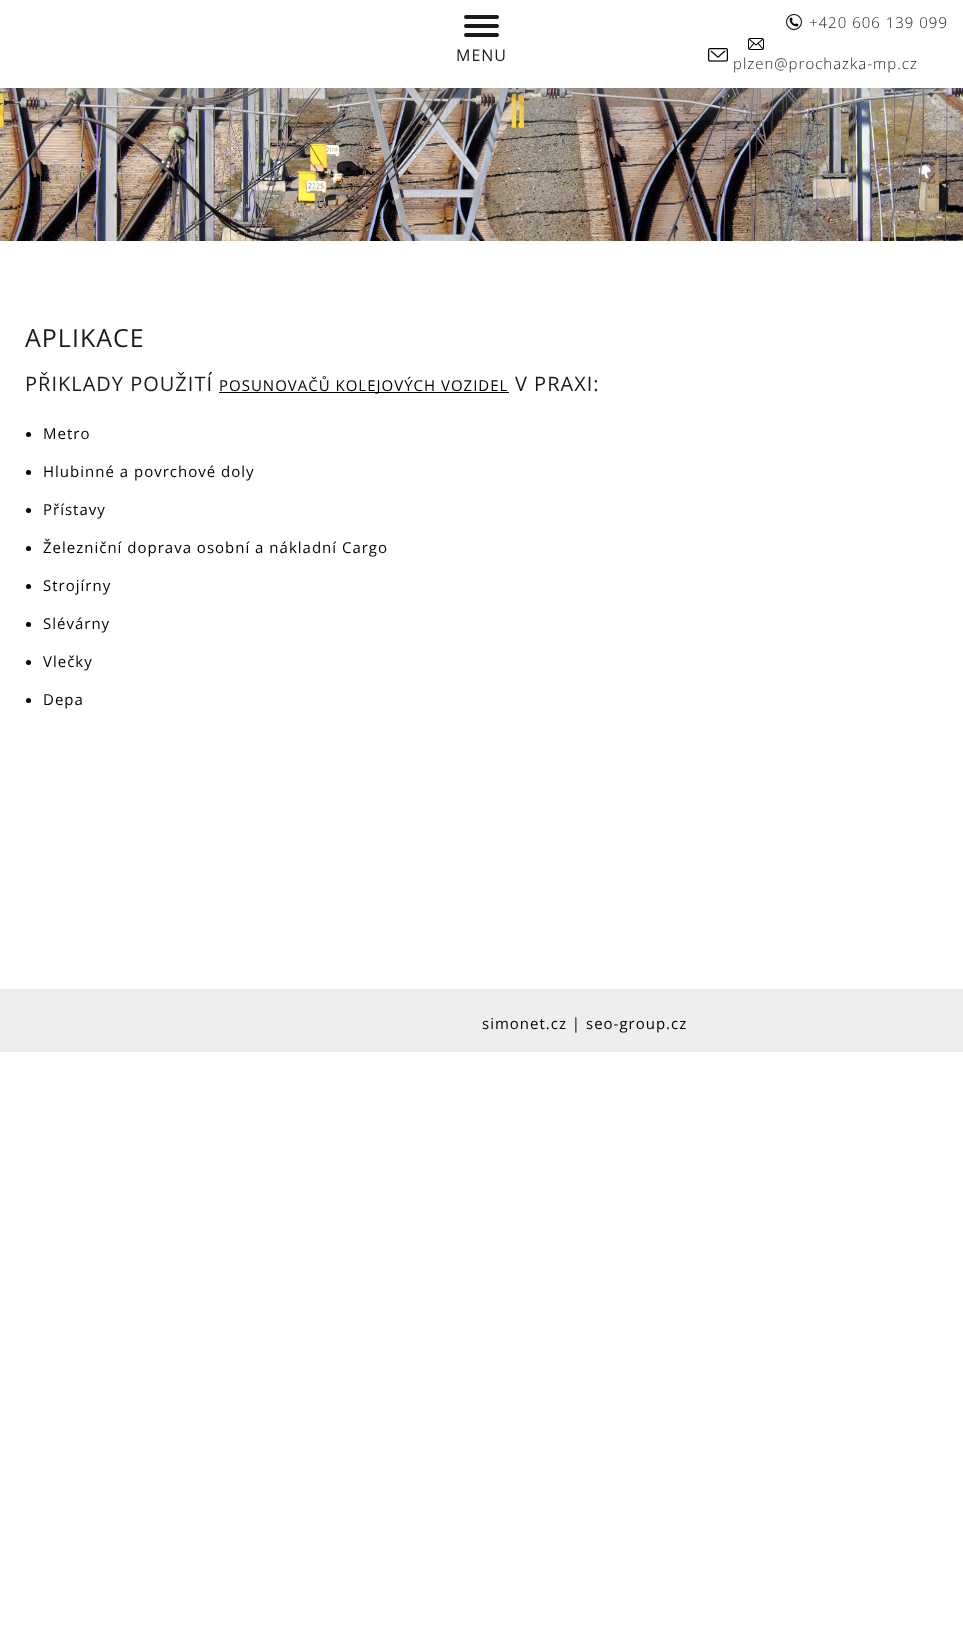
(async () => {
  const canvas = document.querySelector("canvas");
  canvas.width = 963;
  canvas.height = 1638;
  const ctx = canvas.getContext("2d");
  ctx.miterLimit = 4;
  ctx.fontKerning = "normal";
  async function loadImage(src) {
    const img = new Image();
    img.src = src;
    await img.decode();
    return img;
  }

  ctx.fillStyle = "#ffffff";
  ctx.fillRect(0, 0, 963, 1638);
  ctx.drawImage(await loadImage("img/4.png"), 0, 88, 963, 153);
  ctx.fillStyle = "#9e9e9e";
  ctx.filter = "blur(31.5px)";
  ctx.beginPath();
  ctx.rect(10, 12, 943, 68);
  ctx.fill();
  ctx.filter = "none";
  ctx.fillStyle = "#ffffff";
  ctx.fillRect(0, 0, 963, 88);
  ctx.fillStyle = "#1a1a1a";
  ctx.beginPath();
  ctx.roundRect(464, 15, 35, 4, 2);
  ctx.fill();
  ctx.beginPath();
  ctx.roundRect(464, 24, 35, 4, 2);
  ctx.fill();
  ctx.beginPath();
  ctx.roundRect(464, 33, 35, 4, 2);
  ctx.fill();
  ctx.drawImage(await loadImage("img/1.png"), 786, 14, 16, 16);
  ctx.drawImage(await loadImage("img/2.png"), 708, 48, 20, 14);
  ctx.drawImage(await loadImage("img/3.png"), 748, 38, 16, 12);
  ctx.fillStyle = "#000000";
  ctx.fillRect(219, 392, 290, 1);
  ctx.beginPath();
  ctx.arc(28.5, 434.5, 2.5, 0, Math.PI * 2);
  ctx.fill();
  ctx.beginPath();
  ctx.arc(28.5, 472.5, 2.5, 0, Math.PI * 2);
  ctx.fill();
  ctx.beginPath();
  ctx.arc(28.5, 510.5, 2.5, 0, Math.PI * 2);
  ctx.fill();
  ctx.beginPath();
  ctx.arc(28.5, 548.5, 2.5, 0, Math.PI * 2);
  ctx.fill();
  ctx.beginPath();
  ctx.arc(28.5, 586.5, 2.5, 0, Math.PI * 2);
  ctx.fill();
  ctx.beginPath();
  ctx.arc(28.5, 624.5, 2.5, 0, Math.PI * 2);
  ctx.fill();
  ctx.beginPath();
  ctx.arc(28.5, 662.5, 2.5, 0, Math.PI * 2);
  ctx.fill();
  ctx.beginPath();
  ctx.arc(28.5, 700.5, 2.5, 0, Math.PI * 2);
  ctx.fill();
  ctx.fillStyle = "#eeeeee";
  ctx.fillRect(0, 989, 963, 63);
  ctx.letterSpacing = "1px";
  ctx.font = "16px Open Sans";
  ctx.fillStyle = "#1a1a1a";
  ctx.fillText("MENU", 456, 61);
  ctx.font = "300 15px Open Sans";
  ctx.fillText("+420 606 139 099", 809, 28);
  ctx.fillText("plzen@prochazka-mp.cz", 733, 69);
  ctx.font = "25px Open Sans";
  ctx.fillText("APLIKACE", 25, 347);
  ctx.font = "20px Open Sans";
  ctx.fillText("PŘIKLADY POUŽITÍ", 25, 391);
  ctx.font = "15px Open Sans";
  ctx.fillStyle = "#000000";
  ctx.fillText("POSUNOVAČŮ KOLEJOVÝCH VOZIDEL", 219, 391);
  ctx.font = "20px Open Sans";
  ctx.fillStyle = "#1a1a1a";
  ctx.fillText("V PRAXI:", 515, 391);
  ctx.font = "15px Open Sans";
  ctx.fillStyle = "#000000";
  for (const [text, x, y] of [
    ["Metro", 43, 439],
    ["Hlubinné a povrchové doly", 43, 477],
    ["Přístavy", 43, 515],
    ["Železniční doprava osobní a nákladní Cargo", 43, 553],
    ["Strojírny", 43, 591],
    ["Slévárny", 43, 629],
    ["Vlečky", 43, 667],
    ["Depa", 43, 705],
    ["simonet.cz | seo-group.cz", 482, 1029],
  ]) {
    ctx.fillText(text, x, y);
  }
})();
